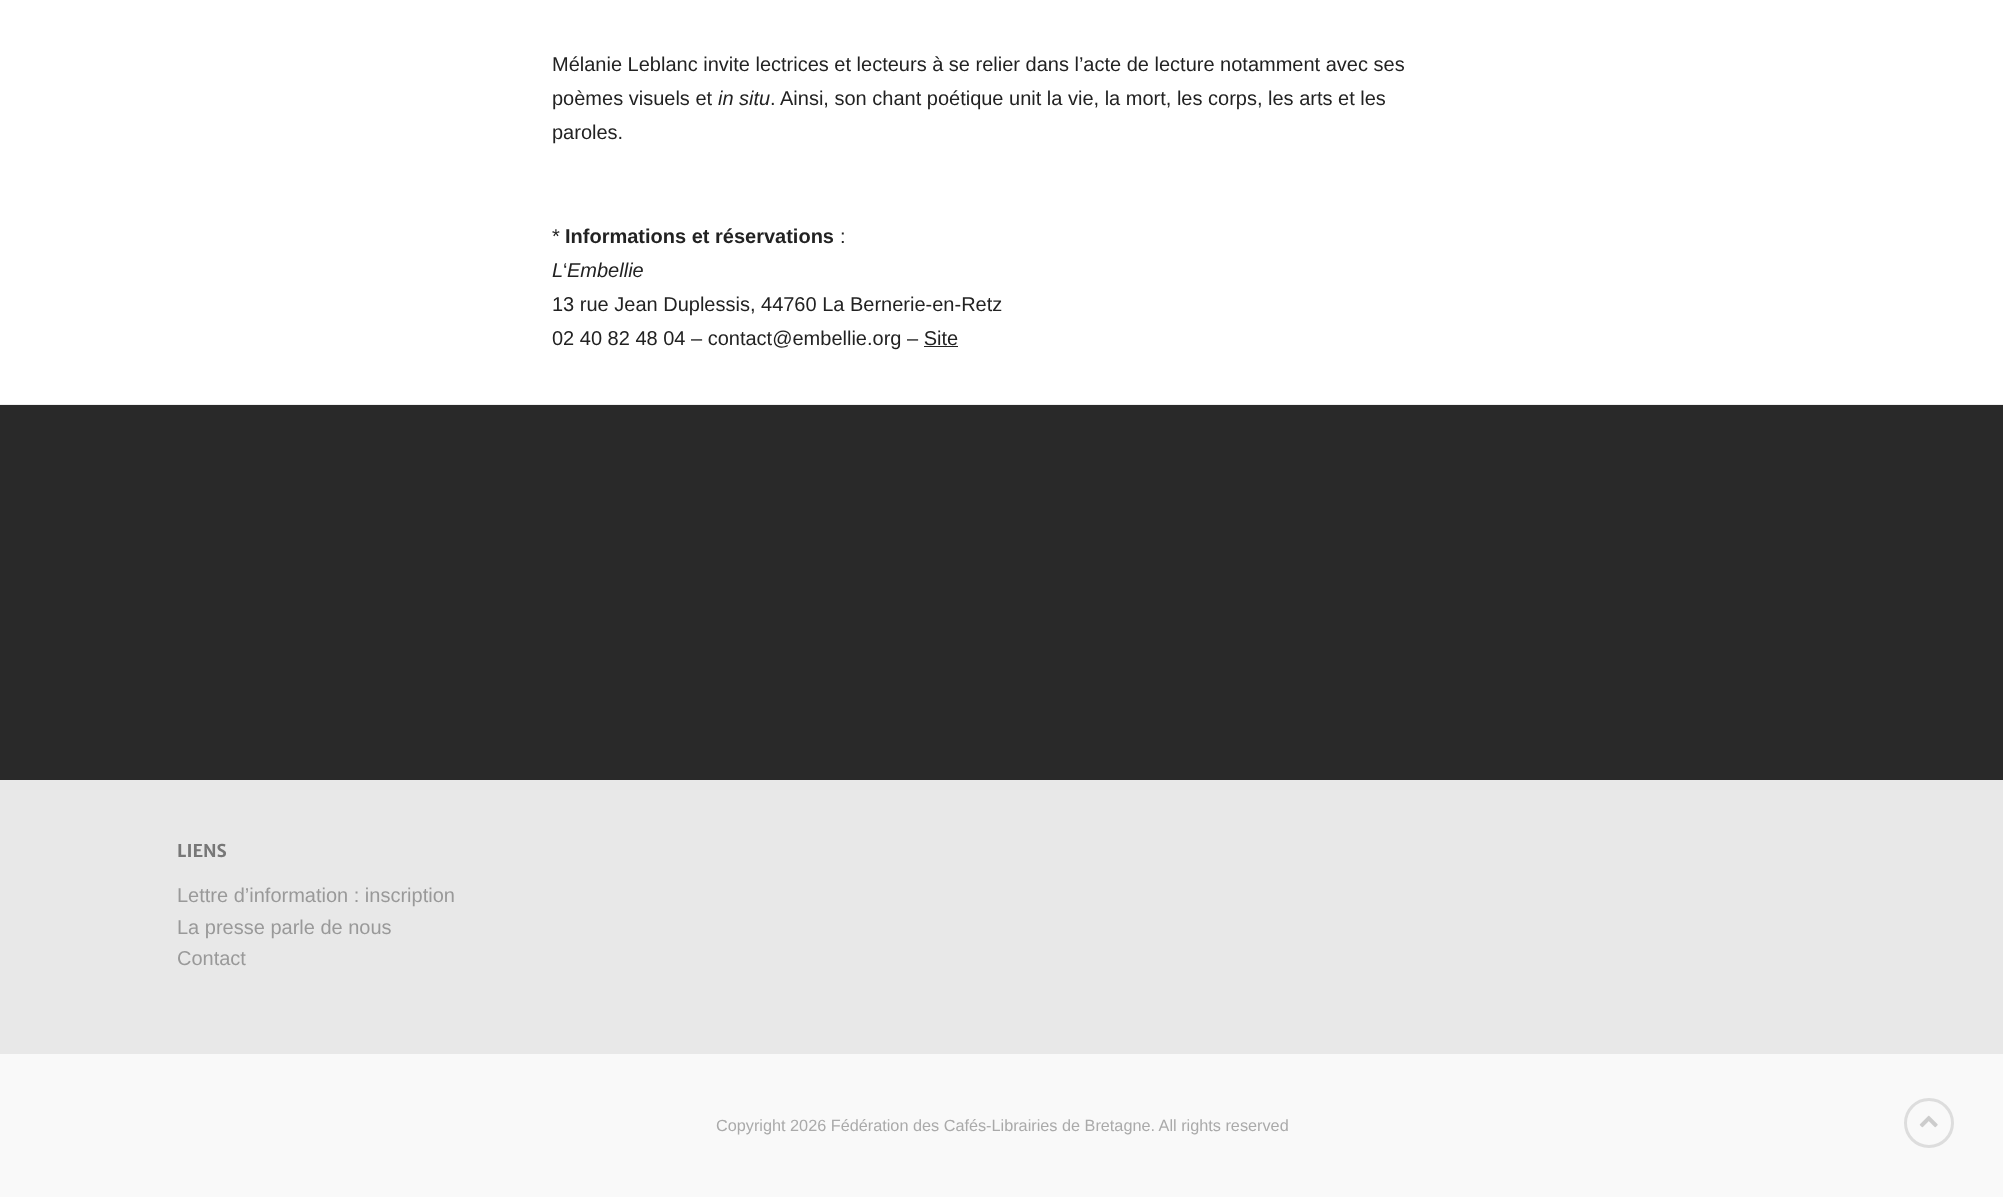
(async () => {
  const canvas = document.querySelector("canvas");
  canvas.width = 2003;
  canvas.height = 1197;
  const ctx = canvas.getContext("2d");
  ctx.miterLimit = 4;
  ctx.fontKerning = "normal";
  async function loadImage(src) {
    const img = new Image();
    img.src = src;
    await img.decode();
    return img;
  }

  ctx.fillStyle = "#ffffff";
  ctx.fillRect(0, 0, 2003, 1197);
  for (const [x, y, w, h, color] of [
    [0, 404, 2003, 1, "#eeeeee"],
    [924, 346, 34, 1, "#222222"],
    [0, 405, 2003, 375, "#292929"],
    [0, 780, 2003, 274, "#e8e8e8"],
    [0, 1054, 2003, 143, "#f9f9f9"],
  ]) {
    ctx.fillStyle = color;
    ctx.fillRect(x, y, w, h);
  }
  ctx.beginPath();
  ctx.arc(1929, 1123, 23.5, 0, Math.PI * 2);
  ctx.strokeStyle = "#dddddd";
  ctx.lineWidth = 3;
  ctx.stroke();
  ctx.drawImage(await loadImage("img/1.png"), 1919, 1115, 19, 13);
  ctx.font = "20px Liberation Sans";
  ctx.fillStyle = "#222222";
  ctx.fillText("Mélanie Leblanc invite lectrices et lecteurs à se relier dans l’acte de lecture notamment avec ses", 552, 71);
  ctx.fillText("poèmes visuels et", 552, 105);
  ctx.font = "italic 20px Liberation Sans";
  ctx.fillText("in situ", 718, 105);
  ctx.font = "20px Liberation Sans";
  for (const [text, x, y] of [
    [". Ainsi, son chant poétique unit la vie, la mort, les corps, les arts et les", 770, 105],
    ["paroles.", 552, 139],
    ["*", 552, 243],
  ]) {
    ctx.fillText(text, x, y);
  }
  ctx.font = "bold 20px Liberation Sans";
  ctx.fillText("Informations et réservations", 565, 243);
  ctx.font = "20px Liberation Sans";
  ctx.fillText(":", 840, 243);
  ctx.font = "italic 20px Liberation Sans";
  ctx.fillText("L", 552, 277);
  ctx.font = "20px Liberation Sans";
  ctx.fillText("‘", 563, 277);
  ctx.font = "italic 20px Liberation Sans";
  ctx.fillText("Embellie", 567, 277);
  ctx.font = "20px Liberation Sans";
  ctx.fillText("13 rue Jean Duplessis, 44760 La Bernerie-en-Retz", 552, 311);
  ctx.fillText("02 40 82 48 04 – contact@embellie.org – Site", 552, 345);
  ctx.font = "bold 17.5px Merriweather Sans";
  ctx.fillStyle = "#777777";
  ctx.fillText("LIENS", 177, 857);
  ctx.font = "20px Liberation Sans";
  ctx.fillStyle = "#999999";
  for (const [text, x, y] of [
    ["Lettre d’information : inscription", 177, 902],
    ["La presse parle de nous", 177, 934],
    ["Contact", 177, 965],
  ]) {
    ctx.fillText(text, x, y);
  }
  ctx.font = "16.25px Liberation Sans";
  ctx.fillStyle = "#aaaaaa";
  ctx.fillText("Copyright 2026 Fédération des Cafés-Librairies de Bretagne. All rights reserved", 716, 1131);
})();
